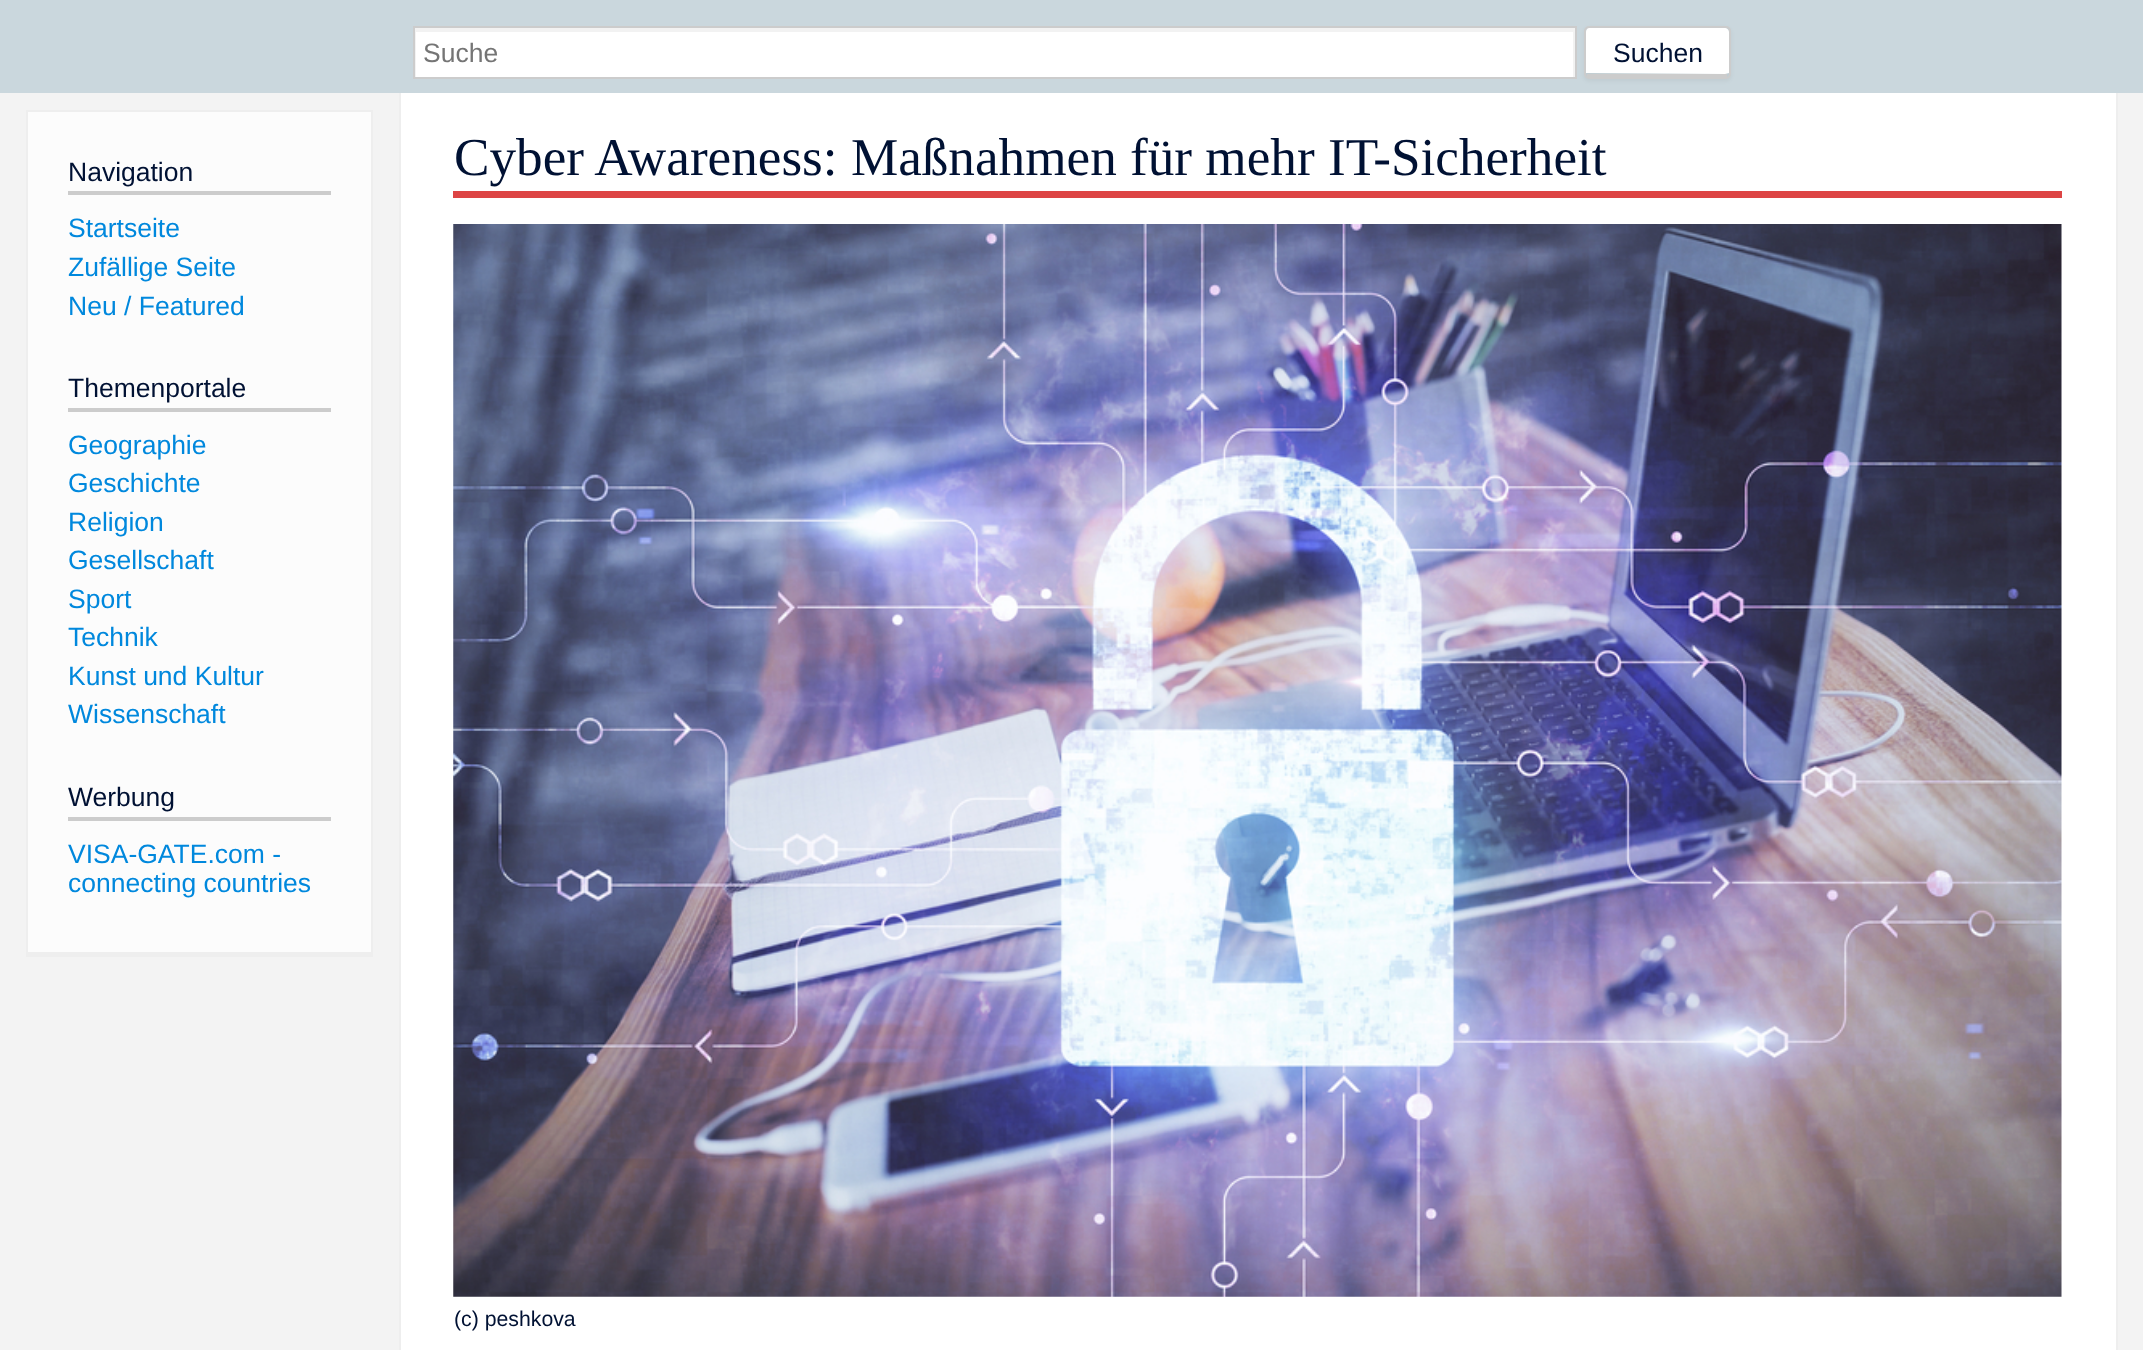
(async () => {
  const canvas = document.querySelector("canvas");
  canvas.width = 2143;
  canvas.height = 1350;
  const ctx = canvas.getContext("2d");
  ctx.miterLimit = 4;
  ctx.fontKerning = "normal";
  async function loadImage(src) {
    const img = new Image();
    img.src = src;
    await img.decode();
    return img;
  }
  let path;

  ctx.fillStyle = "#f3f3f3";
  ctx.fillRect(0, 0, 2143, 1350);
  ctx.fillStyle = "#cad7dd";
  ctx.fillRect(0, 0, 2143, 93);
  ctx.fillStyle = "#ffffff";
  ctx.fillRect(416, 32, 1157, 45);
  ctx.save();
  ctx.beginPath();
  ctx.rect(415, 28, 1160, 49);
  ctx.clip();
  ctx.fillStyle = "#f2f2f2";
  path = new Path2D("M242-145H1748V250H242ZM416 32H1573V77H416Z");
  ctx.fill(path, "evenodd");
  ctx.restore();
  ctx.strokeStyle = "#cccccc";
  ctx.lineWidth = 2;
  ctx.strokeRect(414, 27, 1162, 51);
  ctx.fillStyle = "rgba(0, 0, 0, 0.05)";
  ctx.filter = "blur(2px)";
  ctx.beginPath();
  ctx.roundRect(1584, 28, 147, 53, 5);
  ctx.fill();
  ctx.filter = "none";
  ctx.fillStyle = "#ffffff";
  path = new Path2D("M1589 28H1725C1727 28 1729 30 1729 32V73L1725 74L1586 73V32C1586 30 1587 28 1589 28Z");
  ctx.fill(path);
  ctx.beginPath();
  ctx.roundRect(1585, 27, 145, 51, 4);
  ctx.stroke();
  for (const [x, y, w, h, color] of [
    [1587, 74, 140, 3, "#cccccc"],
    [28, 112, 343, 840, "#fcfcfc"],
    [26, 110, 347, 2, "#eeeeee"],
    [371, 110, 2, 847, "#eeeeee"],
    [26, 952, 347, 5, "#eeeeee"],
    [26, 110, 2, 847, "#eeeeee"],
    [68, 191, 263, 4, "#cccccc"],
    [68, 408, 263, 4, "#cccccc"],
    [68, 817, 263, 4, "#cccccc"],
    [401, 93, 1715, 1257, "#ffffff"],
    [2116, 93, 2, 1257, "#eeeeee"],
    [399, 93, 2, 1257, "#eeeeee"],
    [453, 191, 1609, 7, "#dd4444"],
  ]) {
    ctx.fillStyle = color;
    ctx.fillRect(x, y, w, h);
  }
  ctx.drawImage(await loadImage("img/1.png"), 453, 224, 1609, 1073);
  ctx.font = "26.5px Liberation Sans";
  ctx.fillStyle = "#757575";
  ctx.fillText("Suche", 423, 62);
  ctx.fillStyle = "#001133";
  ctx.fillText("Suchen", 1613, 62);
  ctx.fillText("Navigation", 68, 181);
  ctx.fillStyle = "#0088dd";
  for (const [text, x, y] of [
    ["Startseite", 68, 237],
    ["Zufällige Seite", 68, 276],
    ["Neu / Featured", 68, 315],
  ]) {
    ctx.fillText(text, x, y);
  }
  ctx.fillStyle = "#001133";
  ctx.fillText("Themenportale", 68, 397);
  ctx.fillStyle = "#0088dd";
  for (const [text, x, y] of [
    ["Geographie", 68, 454],
    ["Geschichte", 68, 492],
    ["Religion", 68, 531],
    ["Gesellschaft", 68, 569],
    ["Sport", 68, 608],
    ["Technik", 68, 646],
    ["Kunst und Kultur", 68, 685],
    ["Wissenschaft", 68, 723],
  ]) {
    ctx.fillText(text, x, y);
  }
  ctx.fillStyle = "#001133";
  ctx.fillText("Werbung", 68, 806);
  ctx.fillStyle = "#0088dd";
  ctx.fillText("VISA-GATE.com -", 68, 863);
  ctx.fillText("connecting countries", 68, 892);
  ctx.font = "53.2px Liberation Serif";
  ctx.fillStyle = "#001133";
  ctx.fillText("Cyber Awareness: Maßnahmen für mehr IT-Sicherheit", 454, 175);
  ctx.font = "21.25px Liberation Sans";
  ctx.fillText("(c) peshkova", 454, 1326);
})();
